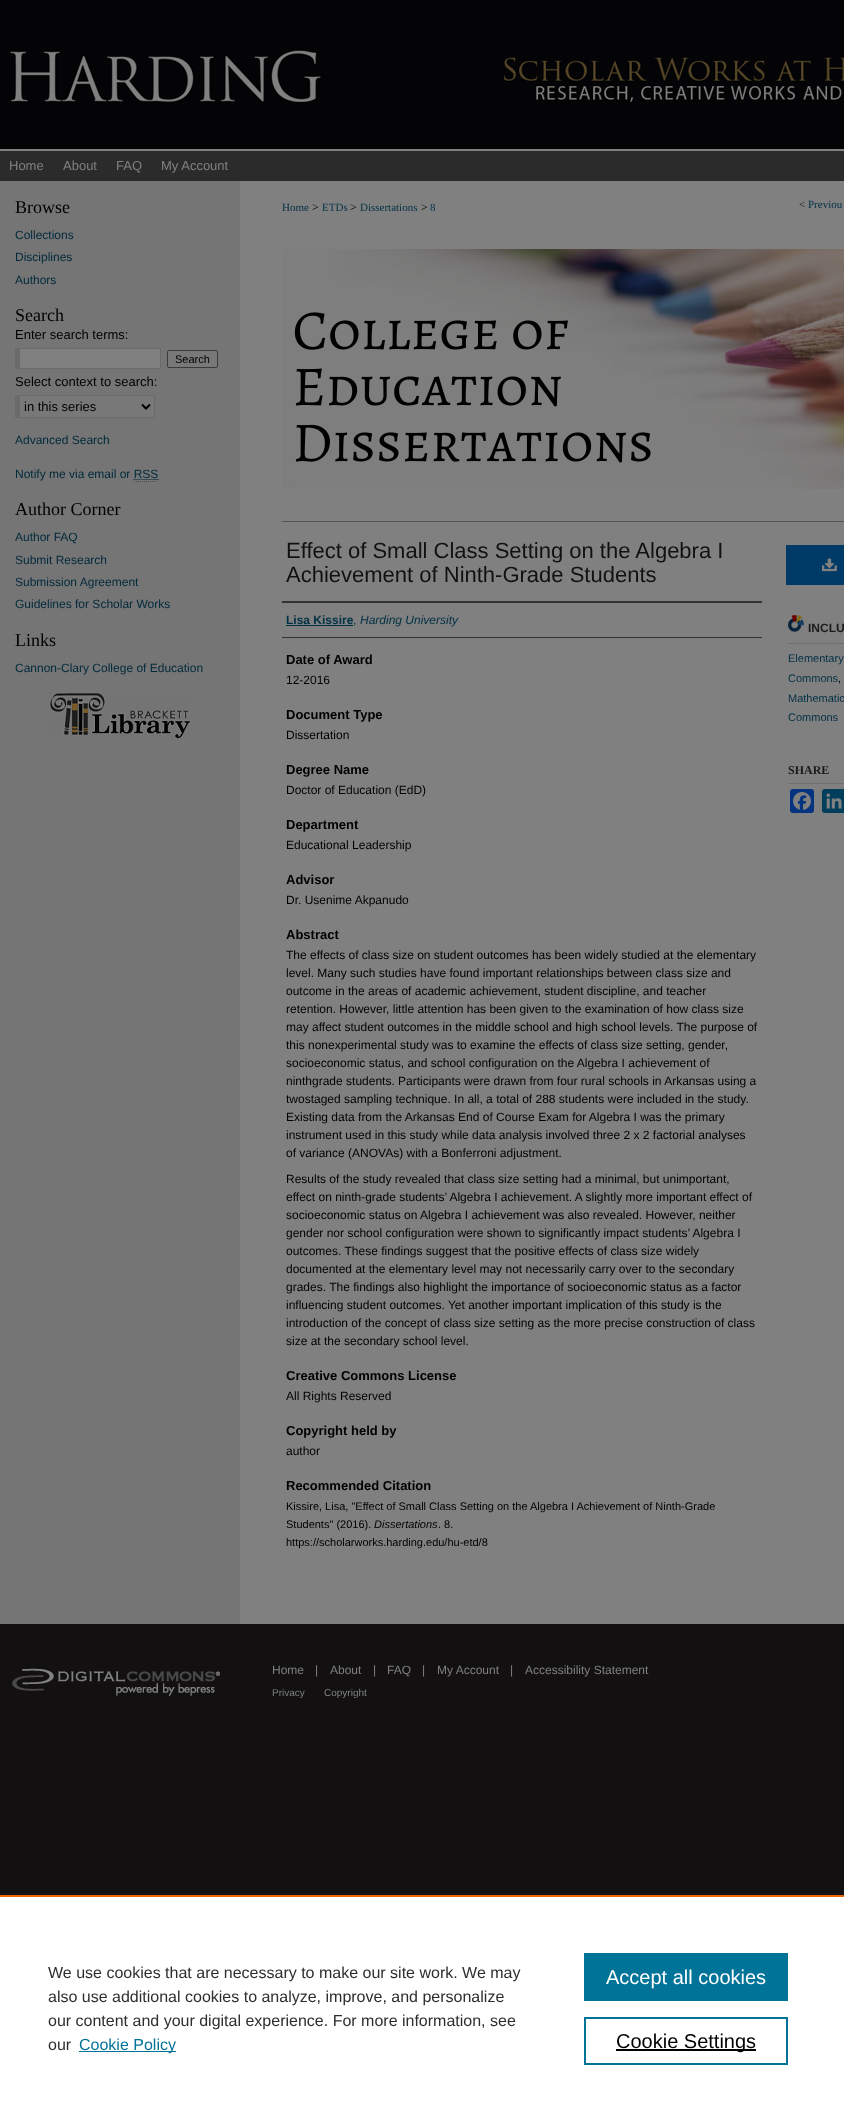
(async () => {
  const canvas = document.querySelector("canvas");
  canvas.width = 844;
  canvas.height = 2121;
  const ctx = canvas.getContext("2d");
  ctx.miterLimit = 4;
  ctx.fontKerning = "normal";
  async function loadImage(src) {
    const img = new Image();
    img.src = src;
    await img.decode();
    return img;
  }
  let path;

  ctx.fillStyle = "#121010";
  ctx.fillRect(0, 0, 844, 2121);
  ctx.fillStyle = "#808080";
  ctx.fillRect(0, 149, 844, 2);
  ctx.drawImage(await loadImage("img/1.png"), 0, 0, 844, 149);
  for (const [x, y, w, h, color] of [
    [0, 151, 844, 30, "#2c2b2c"],
    [0, 181, 240, 1443, "#757575"],
    [240, 181, 604, 1443, "#808080"],
    [20, 349, 140, 19, "#808080"],
    [15, 348, 146, 1, "#6b6b6b"],
    [160, 348, 1, 21, "#6b6b6b"],
    [15, 368, 146, 1, "#6b6b6b"],
    [15, 348, 5, 21, "#6b6b6b"],
  ]) {
    ctx.fillStyle = color;
    ctx.fillRect(x, y, w, h);
  }
  ctx.fillStyle = "#787878";
  ctx.beginPath();
  ctx.roundRect(167.5, 350.5, 50, 17, 1.5);
  ctx.fill();
  ctx.strokeStyle = "#3b3b3b";
  ctx.stroke();
  for (const [x, y, w, h, color] of [
    [20, 396, 134, 21, "#787878"],
    [15, 395, 140, 1, "#6b6b6b"],
    [154, 395, 1, 23, "#6b6b6b"],
    [15, 417, 140, 1, "#6b6b6b"],
    [15, 395, 5, 23, "#6b6b6b"],
  ]) {
    ctx.fillStyle = color;
    ctx.fillRect(x, y, w, h);
  }
  path = new Path2D("M142 404.5L146 408.5L150 404.5");
  ctx.strokeStyle = "#000000";
  ctx.lineWidth = 2;
  ctx.stroke(path);
  path = new Path2D("M133.5 479.5H158.5");
  ctx.strokeStyle = "#00293b";
  ctx.lineWidth = 1;
  ctx.setLineDash([1, 1]);
  ctx.stroke(path);
  path = new Path2D("M134 481.5H158");
  ctx.strokeStyle = "#4d4d4d";
  ctx.stroke(path);
  ctx.drawImage(await loadImage("img/2.png"), 50, 693, 140, 45);
  ctx.drawImage(await loadImage("img/3.png"), 282, 249, 562, 240);
  for (const [x, y, w, h, color] of [
    [282, 521, 562, 1, "#555555"],
    [282, 601, 480, 2, "#333333"],
    [282, 637, 480, 1, "#333333"],
    [286, 625, 67, 1, "#003044"],
    [786, 545, 58, 40, "#003a66"],
  ]) {
    ctx.fillStyle = color;
    ctx.fillRect(x, y, w, h);
  }
  ctx.drawImage(await loadImage("img/4.png"), 822, 558, 15, 14);
  ctx.drawImage(await loadImage("img/5.png"), 788, 615, 16, 17);
  ctx.fillStyle = "#6f6f6f";
  ctx.fillRect(788, 643, 56, 1);
  ctx.fillRect(788, 783, 56, 1);
  ctx.fillStyle = "#043380";
  ctx.beginPath();
  ctx.roundRect(790, 789, 24, 24, 3);
  ctx.fill();
  ctx.drawImage(await loadImage("img/6.png"), 793, 792, 18, 18);
  ctx.fillStyle = "#003e5b";
  ctx.beginPath();
  ctx.roundRect(822, 789, 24, 24, 3);
  ctx.fill();
  ctx.drawImage(await loadImage("img/7.png"), 826, 793, 16, 16);
  ctx.drawImage(await loadImage("img/8.png"), 12, 1668, 208, 28);
  for (const [x, y, w, h, color] of [
    [0, 1897, 844, 224, "#ffffff"],
    [0, 1895, 844, 2, "#eb6500"],
    [79, 2051, 97, 1, "#007398"],
    [584, 1953, 204, 48, "#007398"],
  ]) {
    ctx.fillStyle = color;
    ctx.fillRect(x, y, w, h);
  }
  ctx.strokeStyle = "#007398";
  ctx.lineWidth = 2;
  ctx.setLineDash([]);
  ctx.strokeRect(585, 2018, 202, 46);
  ctx.fillStyle = "#000000";
  ctx.fillRect(616, 2049, 140, 2);
  ctx.font = "13px Liberation Sans";
  ctx.fillStyle = "#808080";
  for (const [text, x, y] of [
    ["Home", 9, 170],
    ["About", 63, 170],
    ["FAQ", 116, 170],
    ["My Account", 161, 170],
  ]) {
    ctx.fillText(text, x, y);
  }
  ctx.font = "18px Liberation Serif";
  ctx.fillStyle = "#000000";
  ctx.fillText("Browse", 15, 213);
  ctx.font = "12px Liberation Sans";
  ctx.fillStyle = "#00293b";
  for (const [text, x, y] of [
    ["Collections", 15, 239],
    ["Disciplines", 15, 261],
    ["Authors", 15, 284],
  ]) {
    ctx.fillText(text, x, y);
  }
  ctx.font = "18px Liberation Serif";
  ctx.fillStyle = "#000000";
  ctx.fillText("Search", 15, 321);
  ctx.font = "13px Liberation Sans";
  ctx.fillText("Enter search terms:", 15, 339);
  ctx.font = "11px Liberation Sans";
  ctx.fillText("Search", 175, 363);
  ctx.font = "13px Liberation Sans";
  ctx.fillText("Select context to search:", 15, 386);
  ctx.fillText("in this series", 24, 411);
  ctx.font = "12px Liberation Sans";
  ctx.fillStyle = "#00293b";
  ctx.fillText("Advanced Search", 15, 444);
  ctx.fillText("Notify me via email or RSS", 15, 478);
  ctx.font = "18px Liberation Serif";
  ctx.fillStyle = "#000000";
  ctx.fillText("Author Corner", 15, 515);
  ctx.font = "12px Liberation Sans";
  ctx.fillStyle = "#00293b";
  for (const [text, x, y] of [
    ["Author FAQ", 15, 541],
    ["Submit Research", 15, 564],
    ["Submission Agreement", 15, 586],
    ["Guidelines for Scholar Works", 15, 608],
  ]) {
    ctx.fillText(text, x, y);
  }
  ctx.font = "18px Liberation Serif";
  ctx.fillStyle = "#000000";
  ctx.fillText("Links", 15, 646);
  ctx.font = "12px Liberation Sans";
  ctx.fillStyle = "#00293b";
  ctx.fillText("Cannon-Clary College of Education", 15, 672);
  ctx.font = "11px Liberation Serif";
  ctx.fillStyle = "#003044";
  ctx.fillText("Home", 282, 211);
  ctx.font = "12px Liberation Serif";
  ctx.fillStyle = "#000000";
  ctx.fillText(">", 312, 211);
  ctx.font = "11px Liberation Serif";
  ctx.fillStyle = "#003044";
  ctx.fillText("ETDs", 322, 211);
  ctx.font = "12px Liberation Serif";
  ctx.fillStyle = "#000000";
  ctx.fillText(">", 350, 211);
  ctx.font = "11px Liberation Serif";
  ctx.fillStyle = "#003044";
  ctx.fillText("Dissertations", 360, 211);
  ctx.font = "12px Liberation Serif";
  ctx.fillStyle = "#000000";
  ctx.fillText(">", 421, 211);
  ctx.font = "11px Liberation Serif";
  ctx.fillStyle = "#003044";
  ctx.fillText("8", 430, 211);
  ctx.fillStyle = "#111111";
  ctx.fillText("<", 799, 208);
  ctx.fillStyle = "#003044";
  ctx.fillText("Previou", 808, 208);
  ctx.font = "22px Liberation Sans";
  ctx.fillStyle = "#111111";
  ctx.fillText("Effect of Small Class Setting on the Algebra I", 286, 558);
  ctx.fillText("Achievement of Ninth-Grade Students", 286, 582);
  ctx.font = "bold 12px Liberation Sans";
  ctx.fillStyle = "#003044";
  ctx.fillText("Lisa Kissire", 286, 624);
  ctx.font = "12px Liberation Sans";
  ctx.fillText(",", 353, 624);
  ctx.font = "italic 12px Liberation Sans";
  ctx.fillText("Harding University", 360, 624);
  ctx.font = "bold 13px Liberation Sans";
  ctx.fillStyle = "#000000";
  ctx.fillText("Date of Award", 286, 664);
  ctx.font = "12px Liberation Sans";
  ctx.fillText("12-2016", 286, 684);
  ctx.font = "bold 13px Liberation Sans";
  ctx.fillText("Document Type", 286, 719);
  ctx.font = "12px Liberation Sans";
  ctx.fillText("Dissertation", 286, 739);
  ctx.font = "bold 13px Liberation Sans";
  ctx.fillText("Degree Name", 286, 774);
  ctx.font = "12px Liberation Sans";
  ctx.fillText("Doctor of Education (EdD)", 286, 794);
  ctx.font = "bold 13px Liberation Sans";
  ctx.fillText("Department", 286, 829);
  ctx.font = "12px Liberation Sans";
  ctx.fillText("Educational Leadership", 286, 849);
  ctx.font = "bold 13px Liberation Sans";
  ctx.fillText("Advisor", 286, 884);
  ctx.font = "12px Liberation Sans";
  ctx.fillText("Dr. Usenime Akpanudo", 286, 904);
  ctx.font = "bold 13px Liberation Sans";
  ctx.fillText("Abstract", 286, 939);
  ctx.font = "12px Liberation Sans";
  for (const [text, x, y] of [
    ["The effects of class size on student outcomes has been widely studied at the elementary", 286, 959],
    ["level. Many such studies have found important relationships between class size and", 286, 977],
    ["outcome in the areas of academic achievement, student discipline, and teacher", 286, 995],
    ["retention. However, little attention has been given to the examination of how class size", 286, 1013],
    ["may affect student outcomes in the middle school and high school levels. The purpose of", 286, 1031],
    ["this nonexperimental study was to examine the effects of class size setting, gender,", 286, 1049],
    ["socioeconomic status, and school configuration on the Algebra I achievement of", 286, 1067],
    ["ninthgrade students. Participants were drawn from four rural schools in Arkansas using a", 286, 1085],
    ["twostaged sampling technique. In all, a total of 288 students were included in the study.", 286, 1103],
    ["Existing data from the Arkansas End of Course Exam for Algebra I was the primary", 286, 1121],
    ["instrument used in this study while data analysis involved three 2 x 2 factorial analyses", 286, 1139],
    ["of variance (ANOVAs) with a Bonferroni adjustment.", 286, 1157],
    ["Results of the study revealed that class size setting had a minimal, but unimportant,", 286, 1183],
    ["effect on ninth-grade students’ Algebra I achievement. A slightly more important effect of", 286, 1201],
    ["socioeconomic status on Algebra I achievement was also revealed. However, neither", 286, 1219],
    ["gender nor school configuration were shown to significantly impact students’ Algebra I", 286, 1237],
    ["outcomes. These findings suggest that the positive effects of class size widely", 286, 1255],
    ["documented at the elementary level may not necessarily carry over to the secondary", 286, 1273],
    ["grades. The findings also highlight the importance of socioeconomic status as a factor", 286, 1291],
    ["influencing student outcomes. Yet another important implication of this study is the", 286, 1309],
    ["introduction of the concept of class size setting as the more precise construction of class", 286, 1327],
    ["size at the secondary school level.", 286, 1345],
  ]) {
    ctx.fillText(text, x, y);
  }
  ctx.font = "bold 13px Liberation Sans";
  ctx.fillText("Creative Commons License", 286, 1380);
  ctx.font = "12px Liberation Sans";
  ctx.fillText("All Rights Reserved", 286, 1400);
  ctx.font = "bold 13px Liberation Sans";
  ctx.fillText("Copyright held by", 286, 1435);
  ctx.font = "12px Liberation Sans";
  ctx.fillText("author", 286, 1455);
  ctx.font = "bold 13px Liberation Sans";
  ctx.fillText("Recommended Citation", 286, 1490);
  ctx.font = "11px Liberation Sans";
  ctx.fillText("Kissire, Lisa, \"Effect of Small Class Setting on the Algebra I Achievement of Ninth-Grade", 286, 1510);
  ctx.fillText("Students\" (2016).", 286, 1528);
  ctx.font = "italic 11px Liberation Sans";
  ctx.fillText("Dissertations", 374, 1528);
  ctx.font = "11px Liberation Sans";
  ctx.fillText(". 8.", 438, 1528);
  ctx.fillText("https://scholarworks.harding.edu/hu-etd/8", 286, 1546);
  ctx.font = "bold 12px Liberation Sans";
  ctx.fillStyle = "#1a1a1a";
  ctx.fillText("INCLU", 808, 632);
  ctx.font = "11px Liberation Sans";
  ctx.fillStyle = "#003044";
  ctx.fillText("Elementary", 788, 662);
  ctx.fillText("Commons", 788, 682);
  ctx.fillStyle = "#000000";
  ctx.fillText(",", 838, 682);
  ctx.fillStyle = "#003044";
  ctx.fillText("Mathematic", 788, 702);
  ctx.fillText("Commons", 788, 721);
  ctx.font = "bold 12px Liberation Serif";
  ctx.fillStyle = "#1a1a1a";
  ctx.fillText("SHARE", 788, 774);
  ctx.font = "12px Liberation Sans";
  ctx.fillStyle = "#808080";
  for (const [text, x, y] of [
    ["Home", 272, 1674],
    ["|", 315, 1674],
    ["About", 330, 1674],
    ["|", 373, 1674],
    ["FAQ", 387, 1674],
    ["|", 422, 1674],
    ["My Account", 437, 1674],
    ["|", 510, 1674],
    ["Accessibility Statement", 525, 1674],
  ]) {
    ctx.fillText(text, x, y);
  }
  ctx.font = "10px Liberation Sans";
  ctx.fillText("Privacy", 272, 1696);
  ctx.fillText("Copyright", 324, 1696);
  ctx.font = "16px Liberation Sans";
  ctx.fillStyle = "#2e2e2e";
  for (const [text, x, y] of [
    ["We use cookies that are necessary to make our site work. We may", 48, 1978],
    ["also use additional cookies to analyze, improve, and personalize", 48, 2002],
    ["our content and your digital experience. For more information, see", 48, 2026],
    ["our", 48, 2050],
  ]) {
    ctx.fillText(text, x, y);
  }
  ctx.fillStyle = "#007398";
  ctx.fillText("Cookie Policy", 79, 2050);
  ctx.font = "20px Liberation Sans";
  ctx.fillStyle = "#ffffff";
  ctx.fillText("Accept all cookies", 606, 1984);
  ctx.fillStyle = "#000000";
  ctx.fillText("Cookie Settings", 616, 2048);
})();
